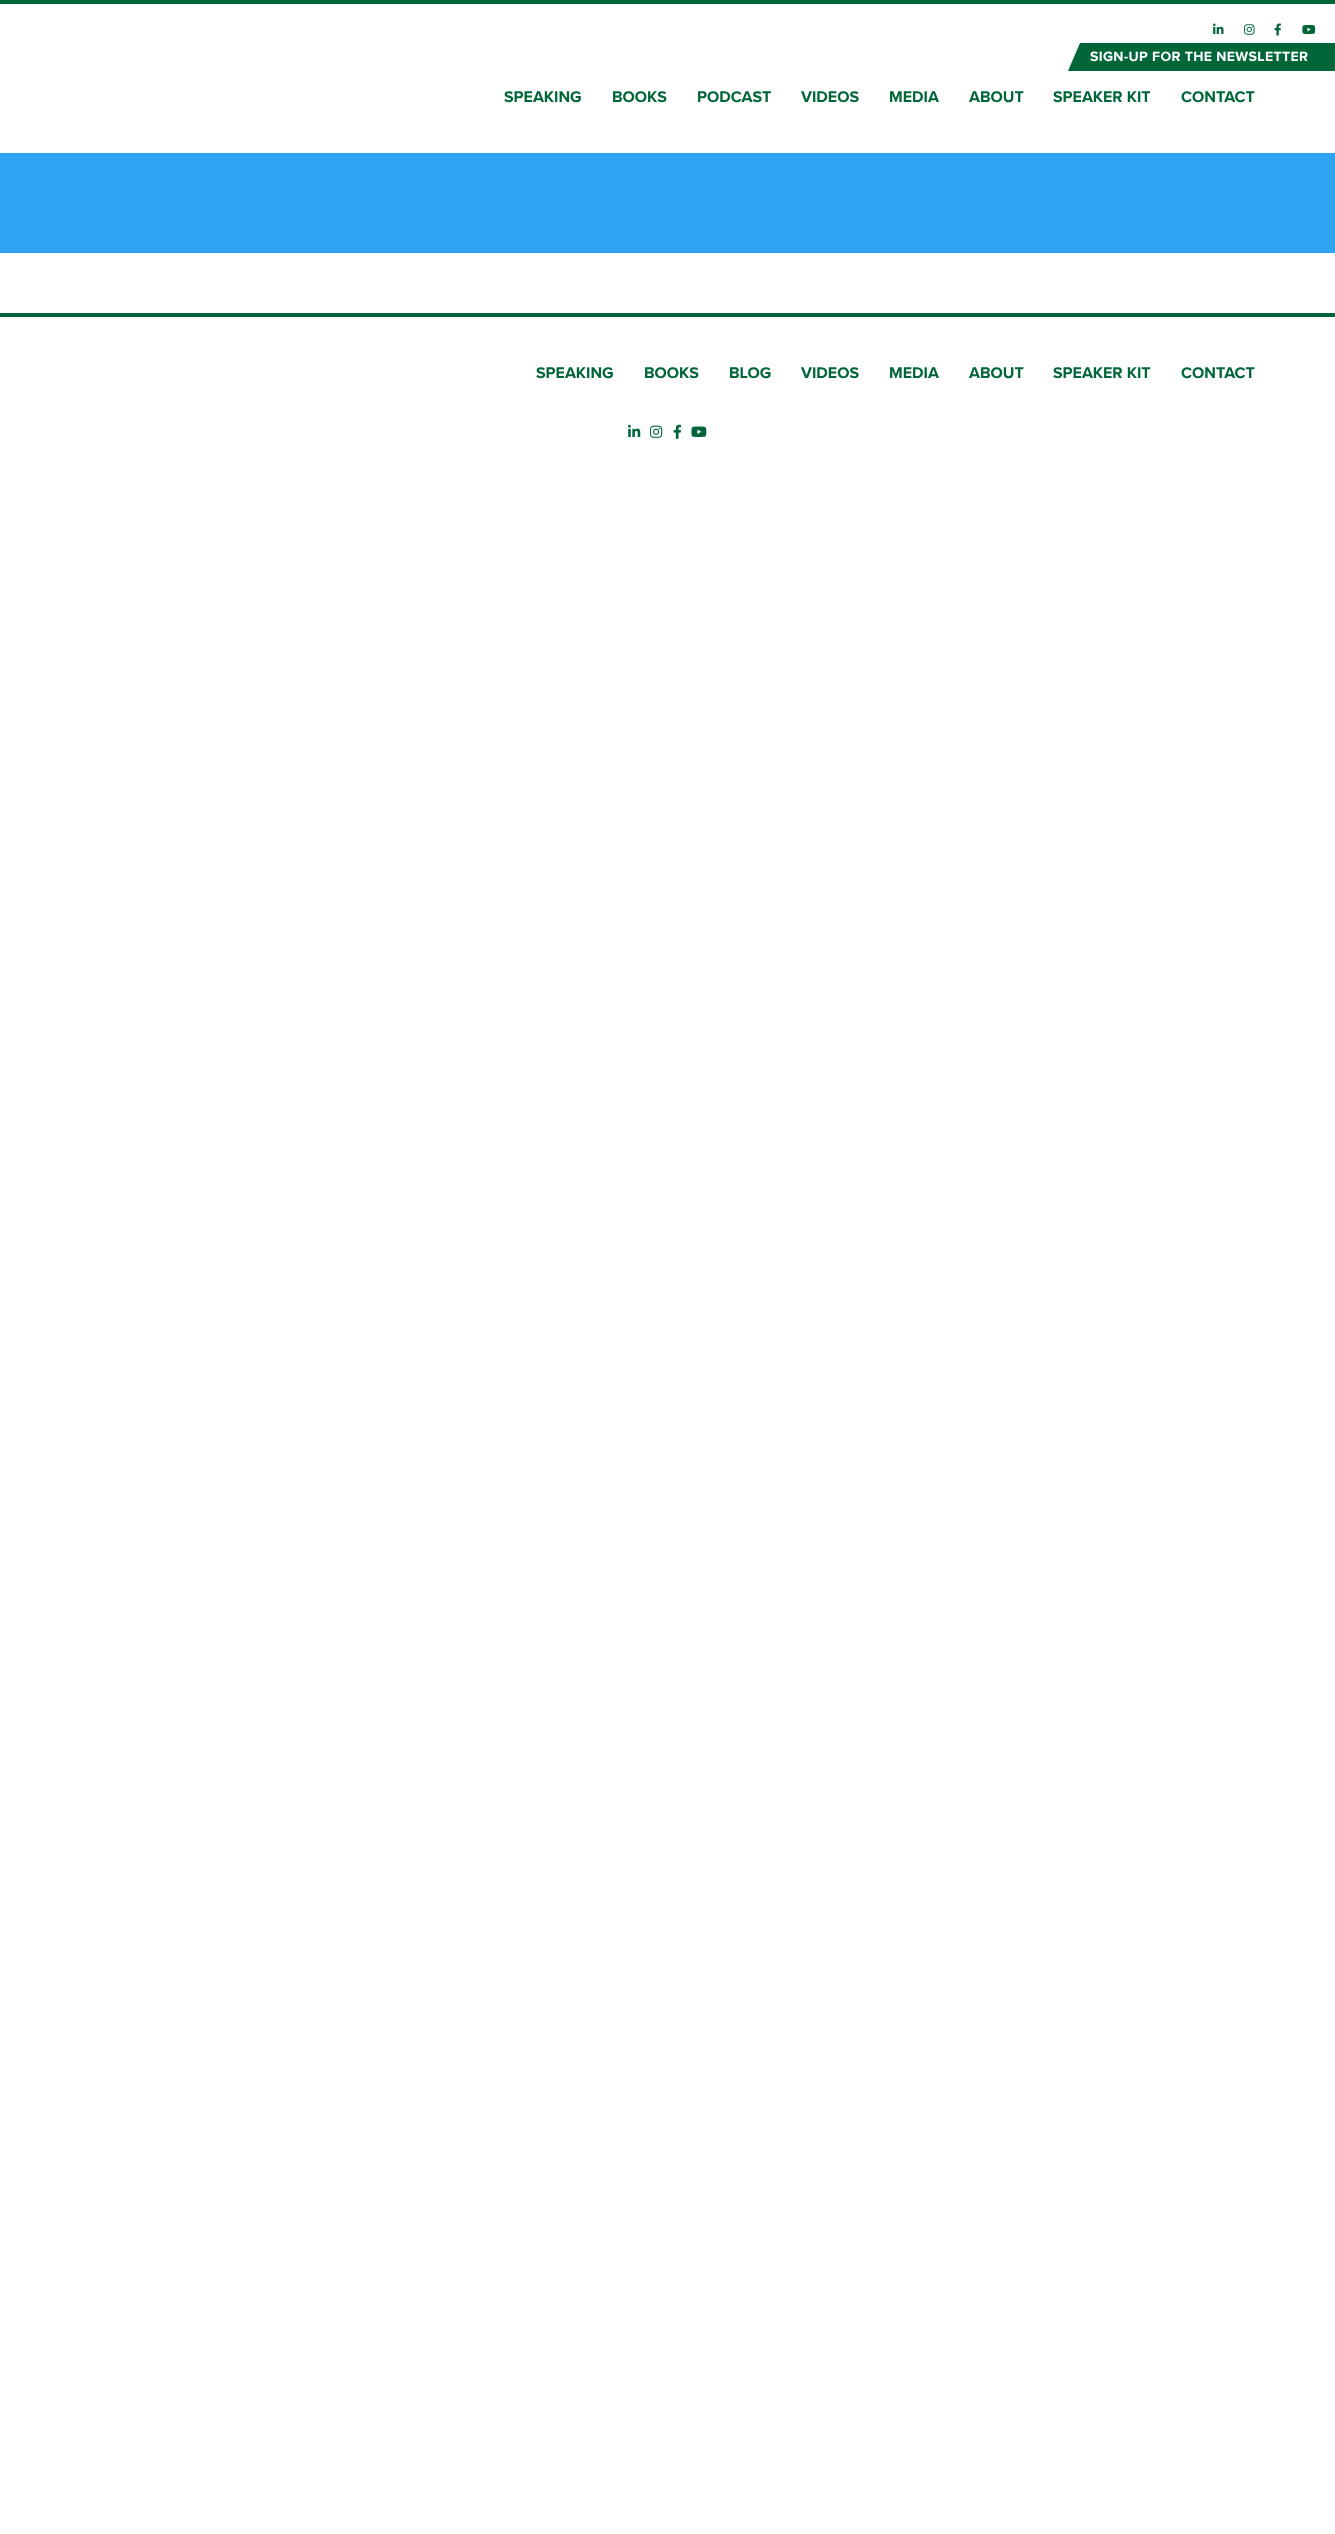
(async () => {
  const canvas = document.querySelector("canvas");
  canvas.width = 1335;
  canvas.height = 2534;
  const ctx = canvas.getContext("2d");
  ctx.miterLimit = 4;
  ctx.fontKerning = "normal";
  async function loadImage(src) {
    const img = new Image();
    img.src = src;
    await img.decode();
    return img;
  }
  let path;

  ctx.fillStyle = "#ffffff";
  ctx.fillRect(0, 0, 1335, 2534);
  ctx.fillStyle = "#006639";
  ctx.fillRect(0, 0, 1335, 4);
  ctx.drawImage(await loadImage("img/1.png"), 1213, 23, 11, 11);
  ctx.drawImage(await loadImage("img/2.png"), 1244, 24, 11, 11);
  ctx.drawImage(await loadImage("img/3.png"), 1274, 23, 7, 13);
  ctx.drawImage(await loadImage("img/4.png"), 1302, 25, 14, 9);
  ctx.fillRect(1080, 43, 255, 28);
  path = new Path2D("M1080 71H1068L1080 43Z");
  ctx.fill(path);
  ctx.fillStyle = "#2ea3f2";
  ctx.fillRect(0, 153, 1335, 100);
  ctx.fillStyle = "#006639";
  ctx.fillRect(0, 313, 1335, 4);
  ctx.drawImage(await loadImage("img/5.png"), 628, 424, 13, 13);
  ctx.drawImage(await loadImage("img/6.png"), 650, 425, 13, 13);
  ctx.drawImage(await loadImage("img/7.png"), 673, 424, 9, 15);
  ctx.drawImage(await loadImage("img/8.png"), 691, 426, 16, 11);
  ctx.letterSpacing = "0.35px";
  ctx.font = "bold 14px Proxima Nova";
  ctx.fillStyle = "#ffffff";
  ctx.fillText("SIGN-UP FOR THE NEWSLETTER", 1090, 61);
  ctx.letterSpacing = "0px";
  ctx.font = "bold 16px Proxima Nova";
  ctx.fillStyle = "#006639";
  for (const [text, x, y] of [
    ["SPEAKING", 504, 102],
    ["BOOKS", 612, 102],
    ["PODCAST", 697, 102],
    ["VIDEOS", 801, 102],
    ["MEDIA", 889, 102],
    ["ABOUT", 969, 102],
    ["SPEAKER KIT", 1053, 102],
    ["CONTACT", 1181, 102],
    ["SPEAKING", 536, 378],
    ["BOOKS", 644, 378],
    ["BLOG", 729, 378],
    ["VIDEOS", 801, 378],
    ["MEDIA", 889, 378],
    ["ABOUT", 969, 378],
    ["SPEAKER KIT", 1053, 378],
    ["CONTACT", 1181, 378],
  ]) {
    ctx.fillText(text, x, y);
  }
})();
